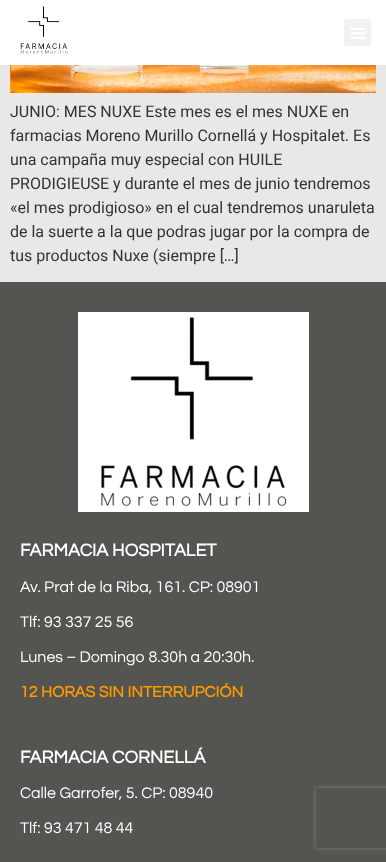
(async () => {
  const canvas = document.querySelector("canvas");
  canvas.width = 386;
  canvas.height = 862;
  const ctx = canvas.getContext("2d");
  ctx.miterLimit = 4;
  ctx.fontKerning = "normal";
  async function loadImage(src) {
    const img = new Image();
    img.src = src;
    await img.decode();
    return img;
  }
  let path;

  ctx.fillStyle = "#e9e8e6";
  ctx.fillRect(0, 0, 386, 862);
  ctx.fillStyle = "#ffffff";
  ctx.fillRect(0, 0, 386, 65);
  ctx.drawImage(await loadImage("img/1.png"), 20, 6, 48, 48);
  ctx.fillStyle = "#f2f2f2";
  ctx.beginPath();
  ctx.roundRect(344, 19, 27, 27, 3);
  ctx.fill();
  ctx.drawImage(await loadImage("img/2.png"), 350, 28, 16, 11);
  ctx.drawImage(await loadImage("img/3.png"), 10, 65, 366, 28);
  ctx.fillStyle = "#545551";
  ctx.fillRect(0, 282, 386, 580);
  ctx.drawImage(await loadImage("img/4.png"), 78, 312, 231, 200);
  ctx.save();
  path = new Path2D("M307 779H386V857H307ZM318 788H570C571 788 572 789 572 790V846C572 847 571 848 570 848H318C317 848 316 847 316 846V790C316 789 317 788 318 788Z");
  ctx.clip(path, "evenodd");
  ctx.fillStyle = "#808080";
  ctx.filter = "blur(2.5px)";
  ctx.beginPath();
  ctx.roundRect(316, 788, 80, 60, 2);
  ctx.fill();
  ctx.filter = "none";
  ctx.restore();
  ctx.font = "16px Roboto";
  ctx.fillStyle = "#333333";
  for (const [text, x, y] of [
    ["JUNIO: MES NUXE Este mes es el mes NUXE en", 10, 117],
    ["farmacias Moreno Murillo Cornellá y Hospitalet. Es", 10, 141],
    ["una campaña muy especial con HUILE", 10, 165],
    ["PRODIGIEUSE y durante el mes de junio tendremos", 10, 189],
    ["«el mes prodigioso» en el cual tendremos unaruleta", 10, 213],
    ["de la suerte a la que podras jugar por la compra de", 10, 237],
    ["tus productos Nuxe (siempre […]", 10, 261],
  ]) {
    ctx.fillText(text, x, y);
  }
  ctx.font = "bold 18px Questrial";
  ctx.fillStyle = "#ffffff";
  ctx.fillText("FARMACIA HOSPITALET", 20, 556);
  ctx.font = "16px Questrial";
  for (const [text, x, y] of [
    ["Av. Prat de la Riba, 161. CP: 08901", 20, 592],
    ["Tlf: 93 337 25 56", 20, 627],
    ["Lunes – Domingo 8.30h a 20:30h.", 20, 662],
  ]) {
    ctx.fillText(text, x, y);
  }
  ctx.font = "bold 16px Questrial";
  ctx.fillStyle = "#ff9900";
  ctx.fillText("12 HORAS SIN INTERRUPCIÓN", 20, 697);
  ctx.font = "bold 18px Questrial";
  ctx.fillStyle = "#ffffff";
  ctx.fillText("FARMACIA CORNELLÁ", 20, 763);
  ctx.font = "16px Questrial";
  ctx.fillText("Calle Garrofer, 5. CP: 08940", 20, 798);
  ctx.fillText("Tlf: 93 471 48 44", 20, 833);
})();
